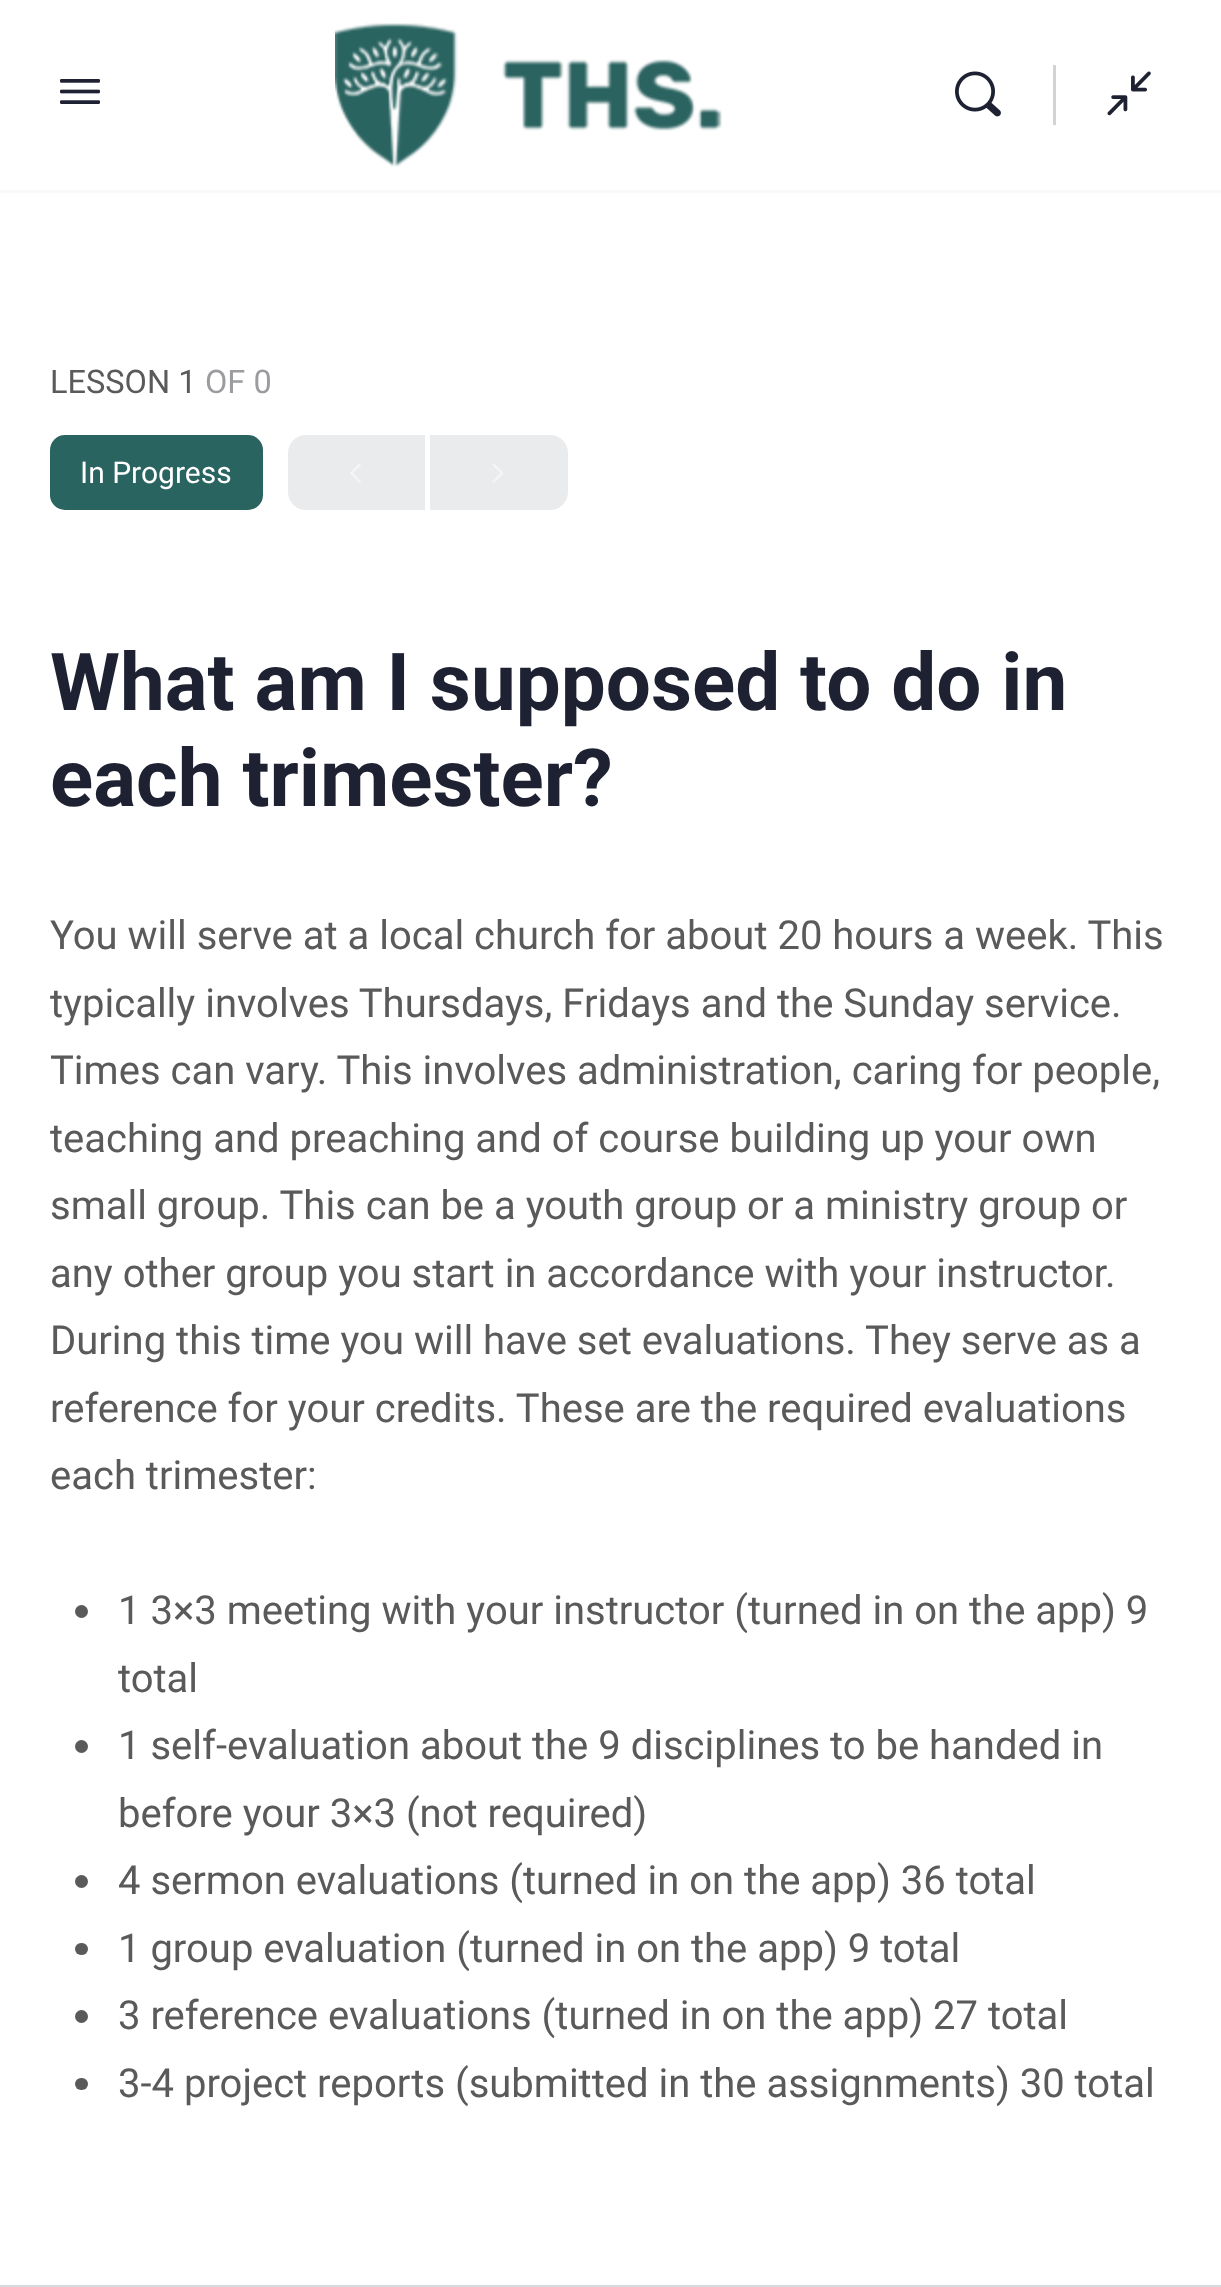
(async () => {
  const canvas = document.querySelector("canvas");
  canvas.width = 1221;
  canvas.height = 2287;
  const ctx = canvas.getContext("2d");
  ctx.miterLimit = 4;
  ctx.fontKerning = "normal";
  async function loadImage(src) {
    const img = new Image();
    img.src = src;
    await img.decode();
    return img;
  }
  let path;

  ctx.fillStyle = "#ffffff";
  ctx.fillRect(0, 0, 1221, 2287);
  ctx.fillStyle = "rgba(139, 141, 157, 0.05)";
  path = new Path2D("M0 190V193H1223V3H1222V190Z");
  ctx.fill(path);
  ctx.drawImage(await loadImage("img/1.png"), 60, 79, 40, 25);
  ctx.drawImage(await loadImage("img/2.png"), 335, 23, 387, 144);
  ctx.drawImage(await loadImage("img/3.png"), 955, 71, 46, 46);
  ctx.fillStyle = "#d2d3d6";
  ctx.fillRect(1053, 65, 3, 60);
  ctx.drawImage(await loadImage("img/4.png"), 1107, 71, 44, 45);
  ctx.fillStyle = "#d6d9dd";
  ctx.fillRect(0, 2285, 1221, 2);
  ctx.fillStyle = "#2a6461";
  ctx.beginPath();
  ctx.roundRect(50, 435, 213, 75, 15);
  ctx.fill();
  ctx.fillStyle = "#e9ebed";
  ctx.beginPath();
  ctx.roundRect(288, 435, 137, 75, [18, 0, 0, 18]);
  ctx.fill();
  ctx.drawImage(await loadImage("img/5.png"), 350, 463, 11, 20);
  ctx.beginPath();
  ctx.roundRect(430, 435, 138, 75, [0, 18, 18, 0]);
  ctx.fill();
  ctx.drawImage(await loadImage("img/6.png"), 492, 463, 11, 20);
  ctx.fillStyle = "#5a5a5a";
  ctx.beginPath();
  ctx.arc(81.5, 1611.5, 6.5, 0, Math.PI * 2);
  ctx.fill();
  ctx.beginPath();
  ctx.arc(81.5, 1746.5, 6.5, 0, Math.PI * 2);
  ctx.fill();
  ctx.beginPath();
  ctx.arc(81.5, 1881.5, 6.5, 0, Math.PI * 2);
  ctx.fill();
  ctx.beginPath();
  ctx.roundRect(75, 1943, 13, 12, 6);
  ctx.fill();
  ctx.beginPath();
  ctx.arc(81.5, 2016.5, 6.5, 0, Math.PI * 2);
  ctx.fill();
  ctx.beginPath();
  ctx.roundRect(75, 2078, 13, 12, 6);
  ctx.fill();
  ctx.font = "32.5px Roboto";
  ctx.fillText("LESSON 1", 50, 393);
  ctx.fillStyle = "#9b9c9f";
  ctx.fillText("OF 0", 205, 393);
  ctx.font = "30px Roboto";
  ctx.fillStyle = "#ffffff";
  ctx.fillText("In Progress", 80, 483);
  ctx.font = "bold 80px Roboto";
  ctx.fillStyle = "#1e2132";
  ctx.fillText("What am I supposed to do in", 50, 710);
  ctx.fillText("each trimester?", 50, 806);
  ctx.font = "40px Roboto";
  ctx.fillStyle = "#5a5a5a";
  for (const [text, x, y] of [
    ["You will serve at a local church for about 20 hours a week. This", 50, 949],
    ["typically involves Thursdays, Fridays and the Sunday service.", 50, 1017],
    ["Times can vary. This involves administration, caring for people,", 50, 1084],
    ["teaching and preaching and of course building up your own", 50, 1152],
    ["small group. This can be a youth group or a ministry group or", 50, 1219],
    ["any other group you start in accordance with your instructor.", 50, 1287],
    ["During this time you will have set evaluations. They serve as a", 50, 1354],
    ["reference for your credits. These are the required evaluations", 50, 1422],
    ["each trimester:", 50, 1489],
    ["1 3×3 meeting with your instructor (turned in on the app) 9", 118, 1624],
    ["total", 118, 1692],
    ["1 self-evaluation about the 9 disciplines to be handed in", 118, 1759],
    ["before your 3×3 (not required)", 118, 1827],
    ["4 sermon evaluations (turned in on the app) 36 total", 118, 1894],
    ["1 group evaluation (turned in on the app) 9 total", 118, 1962],
    ["3 reference evaluations (turned in on the app) 27 total", 118, 2029],
    ["3-4 project reports (submitted in the assignments) 30 total", 118, 2097],
  ]) {
    ctx.fillText(text, x, y);
  }
})();
